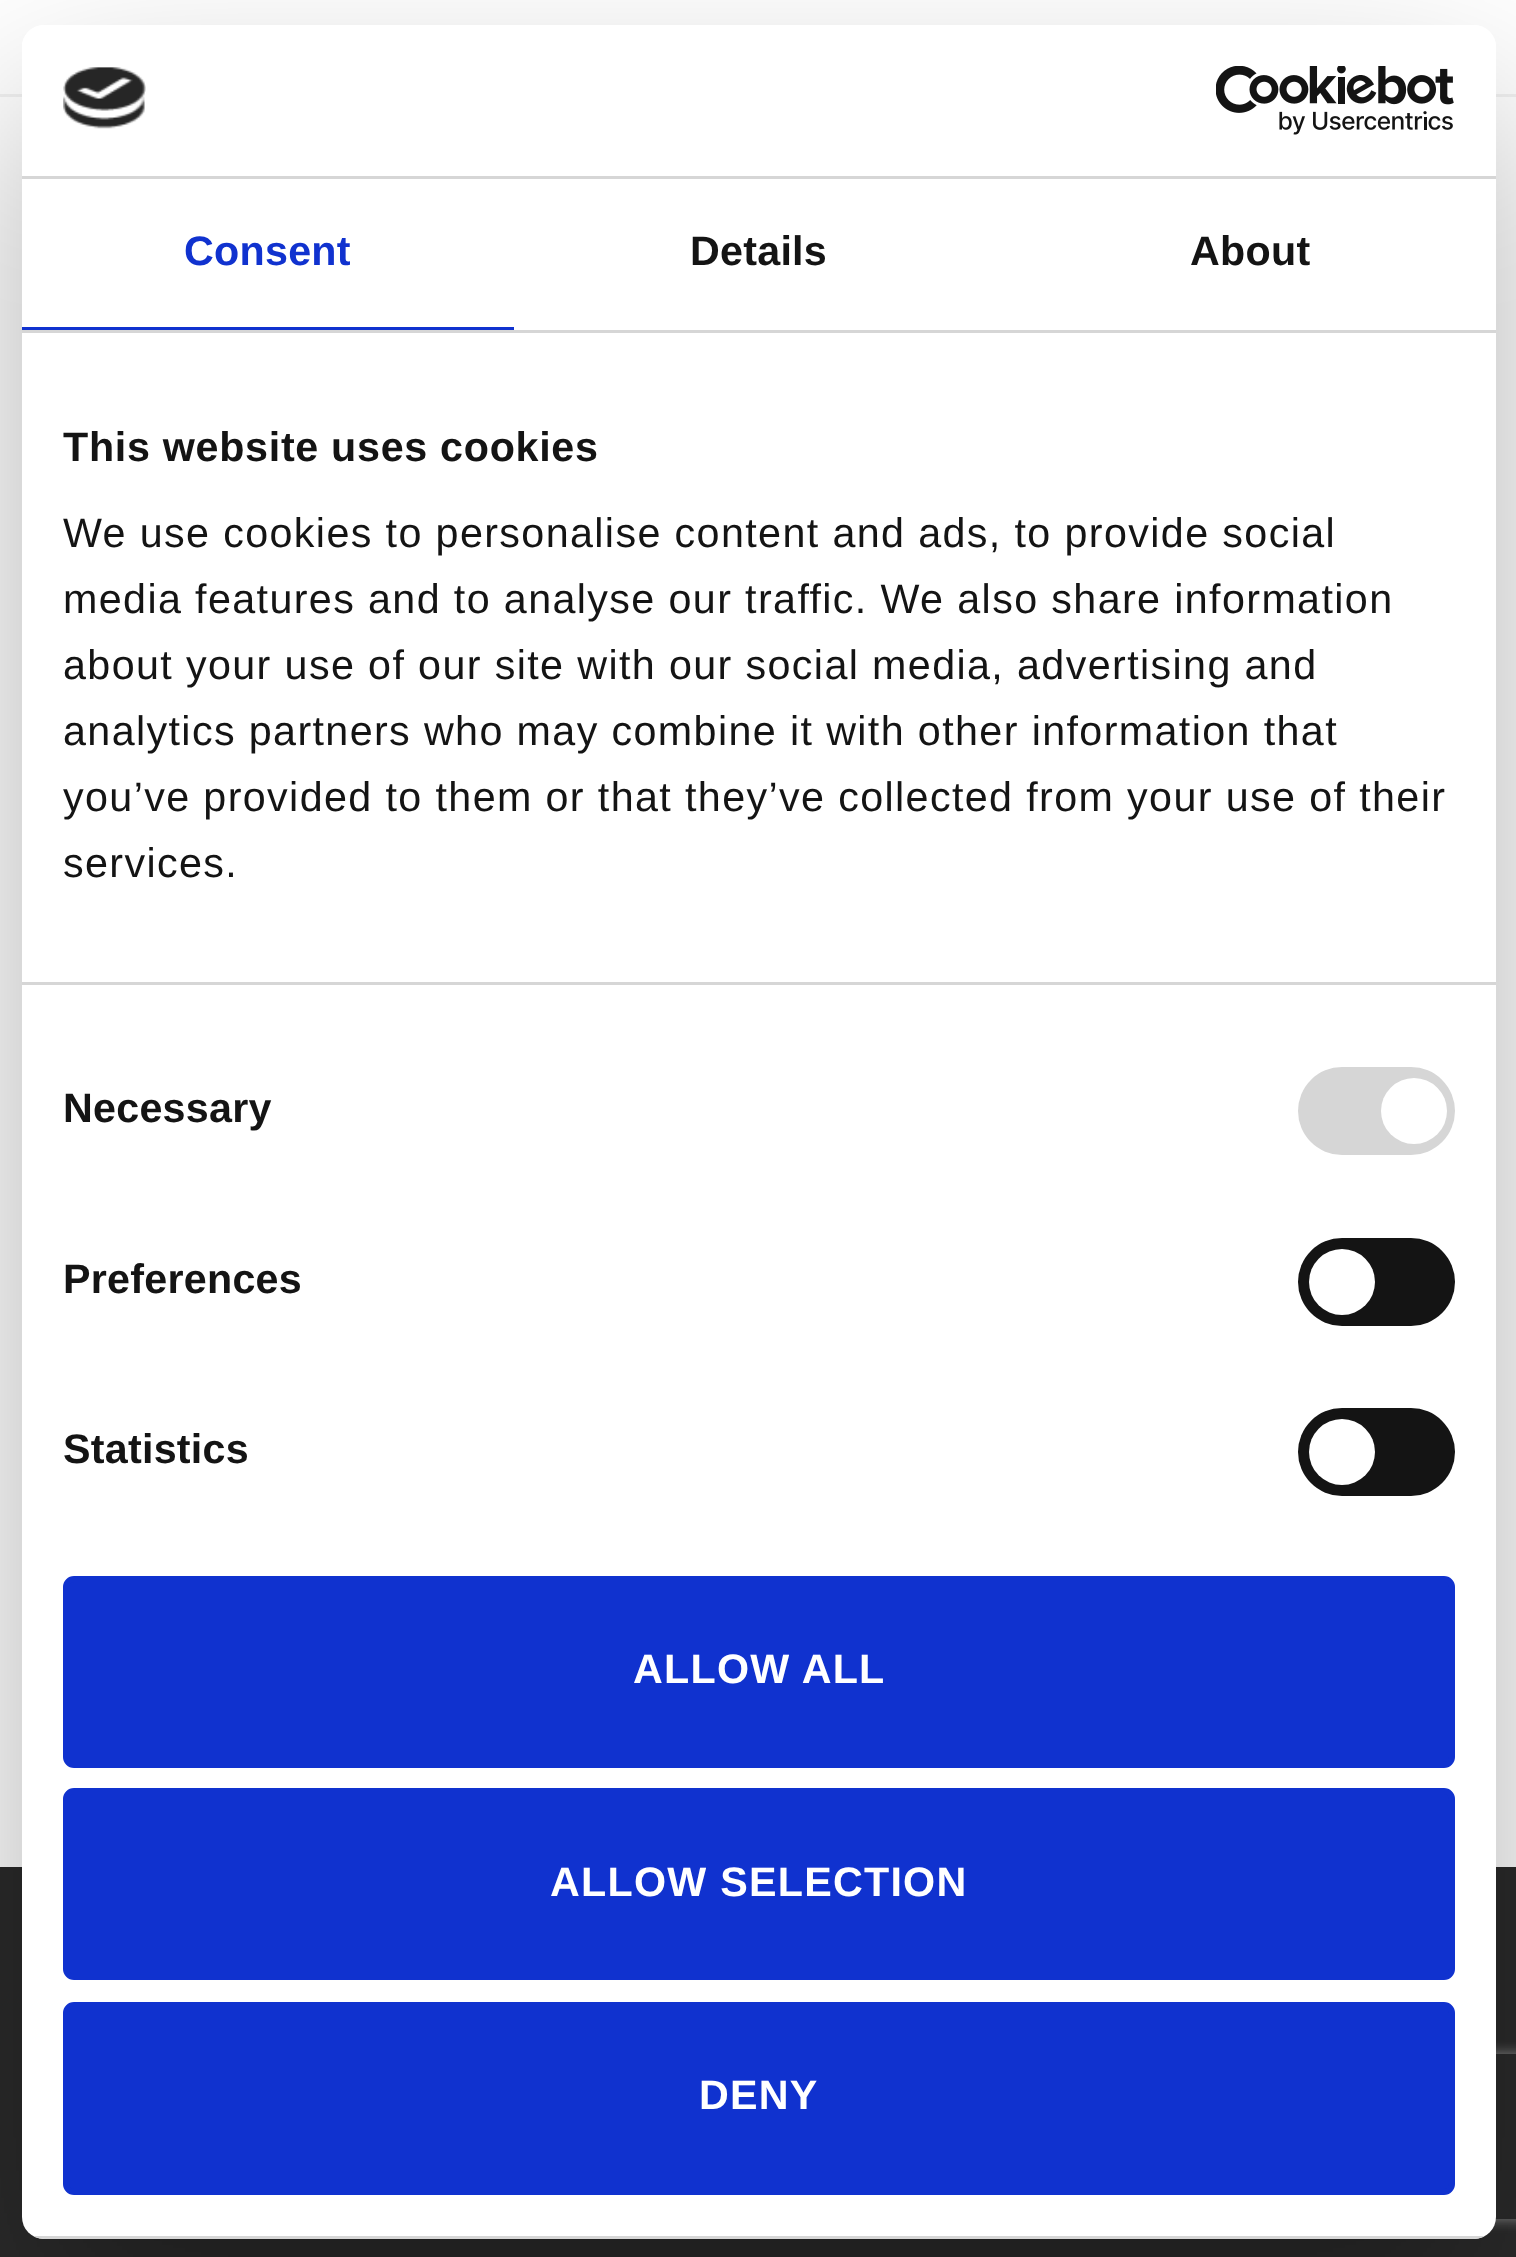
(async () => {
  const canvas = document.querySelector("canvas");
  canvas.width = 1516;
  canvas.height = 2257;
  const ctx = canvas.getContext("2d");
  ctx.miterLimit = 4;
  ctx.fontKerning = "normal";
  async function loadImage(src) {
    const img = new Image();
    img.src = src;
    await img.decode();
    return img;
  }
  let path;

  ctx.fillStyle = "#ffffff";
  ctx.fillRect(0, 0, 1516, 2257);
  for (const [x, y, w, h, color] of [
    [0, 94, 1516, 3, "#f2f2f2"],
    [0, 1870, 1516, 387, "#2b2b2b"],
    [0, 1867, 1516, 3, "#292929"],
  ]) {
    ctx.fillStyle = color;
    ctx.fillRect(x, y, w, h);
  }
  ctx.save();
  path = new Path2D("M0 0H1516V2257H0ZM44 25H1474C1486 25 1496 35 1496 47V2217C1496 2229 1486 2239 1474 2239H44C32 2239 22 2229 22 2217V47C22 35 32 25 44 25Z");
  ctx.clip(path, "evenodd");
  ctx.fillStyle = "rgba(0, 0, 0, 0.3)";
  ctx.filter = "blur(93.5px)";
  ctx.beginPath();
  ctx.roundRect(22, 113, 1474, 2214, 22);
  ctx.fill();
  ctx.filter = "none";
  ctx.restore();
  ctx.save();
  path = new Path2D("M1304 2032H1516V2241H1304ZM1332 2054H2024C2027.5 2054 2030 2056.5 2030 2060V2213C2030 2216.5 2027.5 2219 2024 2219H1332C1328.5 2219 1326 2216.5 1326 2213V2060C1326 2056.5 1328.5 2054 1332 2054Z");
  ctx.clip(path, "evenodd");
  ctx.fillStyle = "#808080";
  ctx.filter = "blur(7px)";
  ctx.beginPath();
  ctx.roundRect(1326, 2054, 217, 165, 6);
  ctx.fill();
  ctx.filter = "none";
  ctx.restore();
  ctx.fillStyle = "#ffffff";
  ctx.beginPath();
  ctx.roundRect(22, 25, 1474, 2214, 22);
  ctx.fill();
  ctx.fillStyle = "#d6d6d6";
  ctx.fillRect(22, 176, 1474, 3);
  ctx.drawImage(await loadImage("img/1.png"), 63, 67, 83, 62);
  ctx.drawImage(await loadImage("img/2.png"), 1216, 66, 238, 69);
  for (const [x, y, w, h, color] of [
    [22, 330, 1474, 3, "#d6d6d6"],
    [22, 327, 492, 3, "#1032cf"],
    [22, 982, 1474, 3, "#d6d6d6"],
  ]) {
    ctx.fillStyle = color;
    ctx.fillRect(x, y, w, h);
  }
  ctx.beginPath();
  ctx.roundRect(1298, 1067, 157, 88, 44);
  ctx.fill();
  ctx.fillStyle = "#ffffff";
  ctx.beginPath();
  ctx.arc(1414, 1111, 33, 0, Math.PI * 2);
  ctx.fill();
  ctx.fillStyle = "#141414";
  ctx.beginPath();
  ctx.roundRect(1298, 1238, 157, 88, 44);
  ctx.fill();
  ctx.fillStyle = "#ffffff";
  ctx.beginPath();
  ctx.arc(1342, 1282, 33, 0, Math.PI * 2);
  ctx.fill();
  ctx.fillStyle = "#141414";
  ctx.beginPath();
  ctx.roundRect(1298, 1408, 157, 88, 44);
  ctx.fill();
  ctx.fillStyle = "#ffffff";
  ctx.beginPath();
  ctx.arc(1342, 1452, 33, 0, Math.PI * 2);
  ctx.fill();
  ctx.save();
  ctx.beginPath();
  ctx.roundRect(22, 25, 1474, 2214, 22);
  ctx.clip();
  ctx.fillStyle = "#d6d6d6";
  ctx.fillRect(33, 2236, 1452, 3);
  ctx.restore();
  ctx.fillStyle = "#1032cf";
  ctx.beginPath();
  ctx.roundRect(66, 1579, 1386, 186, 8);
  ctx.fill();
  ctx.strokeStyle = "#1032cf";
  ctx.lineWidth = 6;
  ctx.stroke();
  ctx.beginPath();
  ctx.roundRect(66, 1791, 1386, 186, 8);
  ctx.fill();
  ctx.stroke();
  ctx.beginPath();
  ctx.roundRect(66, 2005, 1386, 187, 8);
  ctx.fill();
  ctx.stroke();
  ctx.letterSpacing = "0.25px";
  ctx.font = "bold 41.25px Liberation Sans";
  ctx.fillText("Consent", 184, 265);
  ctx.fillStyle = "#141414";
  ctx.fillText("Details", 690, 265);
  ctx.fillText("About", 1190, 265);
  ctx.letterSpacing = "0.7px";
  ctx.fillText("This website uses cookies", 63, 461);
  ctx.letterSpacing = "1.38px";
  ctx.font = "41.25px Liberation Sans";
  for (const [text, x, y] of [
    ["We use cookies to personalise content and ads, to provide social", 63, 547],
    ["media features and to analyse our traffic. We also share information", 63, 613],
    ["about your use of our site with our social media, advertising and", 63, 679],
    ["analytics partners who may combine it with other information that", 63, 745],
    ["you’ve provided to them or that they’ve collected from your use of their", 63, 811],
    ["services.", 63, 877],
  ]) {
    ctx.fillText(text, x, y);
  }
  ctx.letterSpacing = "0.25px";
  ctx.font = "bold 41.25px Liberation Sans";
  for (const [text, x, y] of [
    ["Necessary", 63, 1122],
    ["Preferences", 63, 1293],
    ["Statistics", 63, 1463],
  ]) {
    ctx.fillText(text, x, y);
  }
  ctx.letterSpacing = "1.25px";
  ctx.fillStyle = "#ffffff";
  for (const [text, x, y] of [
    ["ALLOW ALL", 633, 1683],
    ["ALLOW SELECTION", 550, 1896],
    ["DENY", 699, 2109],
  ]) {
    ctx.fillText(text, x, y);
  }
})();
